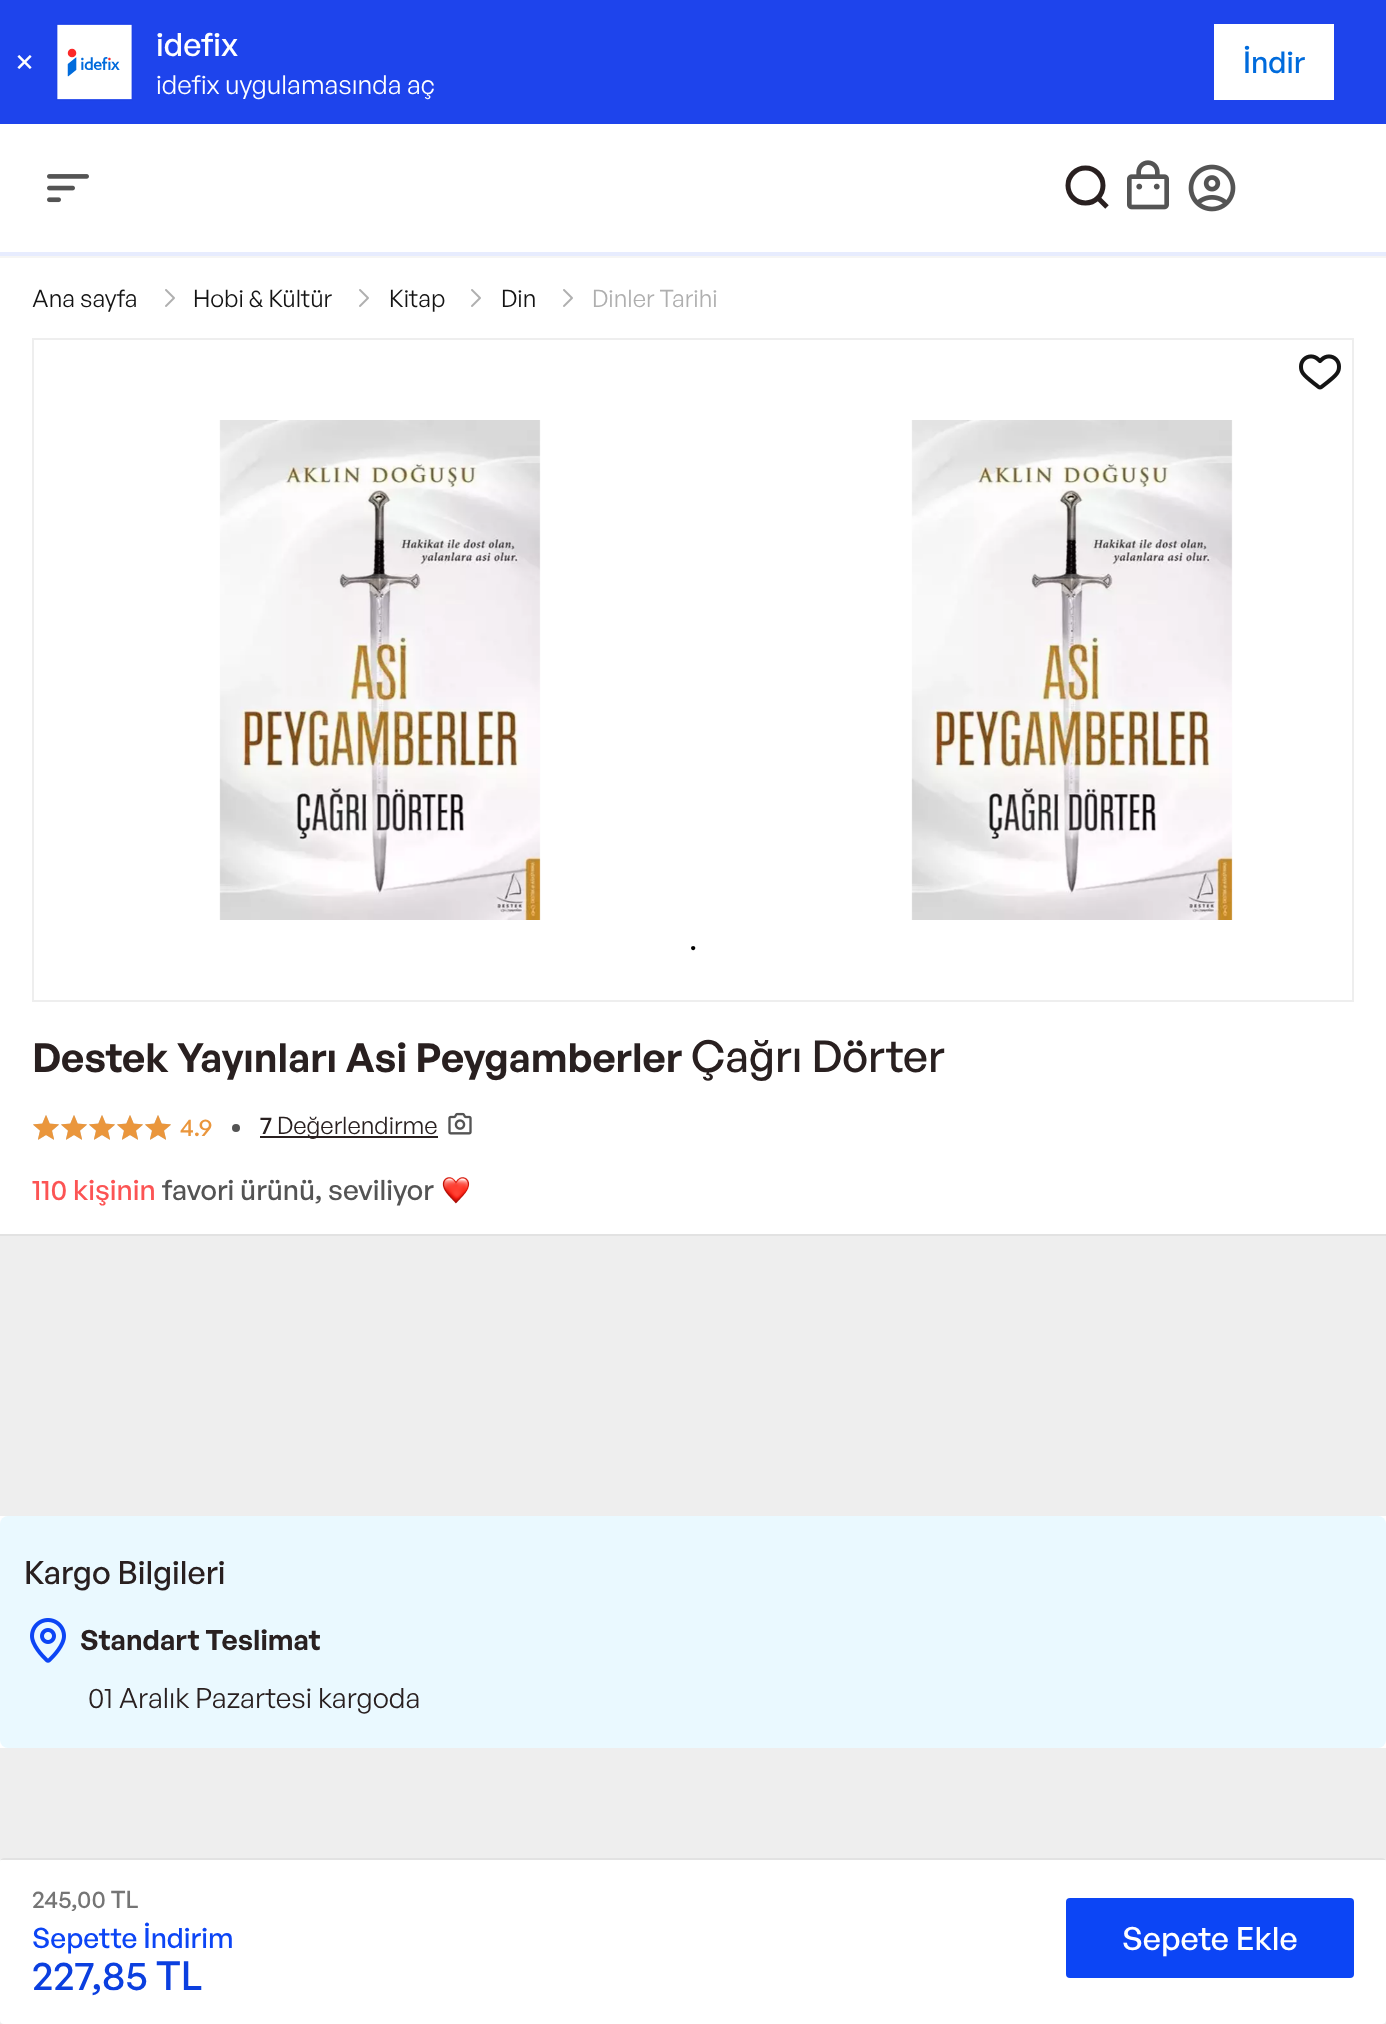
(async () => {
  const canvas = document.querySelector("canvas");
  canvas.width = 1386;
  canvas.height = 2024;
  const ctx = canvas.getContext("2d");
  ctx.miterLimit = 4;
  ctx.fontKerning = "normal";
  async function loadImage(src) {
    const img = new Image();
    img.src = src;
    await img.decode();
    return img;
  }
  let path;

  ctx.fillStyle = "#ffffff";
  ctx.fillRect(0, 0, 1386, 2024);
  ctx.fillStyle = "#1e44ec";
  ctx.fillRect(0, 0, 1386, 124);
  ctx.drawImage(await loadImage("img/1.png"), 17, 55, 15, 14);
  ctx.drawImage(await loadImage("img/2.png"), 56, 23, 77, 78);
  ctx.fillStyle = "#ffffff";
  ctx.fillRect(1214, 24, 120, 76);
  ctx.fillStyle = "#f5f5f5";
  ctx.fillRect(0, 256, 1386, 2);
  ctx.drawImage(await loadImage("img/3.png"), 47, 174, 42, 29);
  ctx.beginPath();
  ctx.arc(1085.5, 185.5, 17.5, 0, Math.PI * 2);
  ctx.strokeStyle = "#292020";
  ctx.lineWidth = 5;
  ctx.stroke();
  path = new Path2D("M1107 207L1098 198");
  ctx.stroke(path);
  ctx.drawImage(await loadImage("img/4.png"), 1127, 160, 42, 50);
  ctx.drawImage(await loadImage("img/5.png"), 1188, 164, 48, 48);
  ctx.fillStyle = "#e7ecfe";
  ctx.fillRect(0, 252, 1386, 4);
  ctx.drawImage(await loadImage("img/6.png"), 165, 289, 10, 18);
  ctx.drawImage(await loadImage("img/6.png"), 359, 289, 10, 18);
  ctx.drawImage(await loadImage("img/6.png"), 471, 289, 10, 18);
  ctx.drawImage(await loadImage("img/6.png"), 563, 289, 10, 18);
  ctx.strokeStyle = "#eeeeee";
  ctx.lineWidth = 2;
  ctx.strokeRect(33, 339, 1320, 662);
  ctx.drawImage(await loadImage("img/7.png"), 1299, 354, 42, 36);
  ctx.drawImage(await loadImage("img/8.png"), 219, 420, 322, 500);
  ctx.drawImage(await loadImage("img/8.png"), 911, 420, 322, 500);
  ctx.fillStyle = "#e2e2e2";
  ctx.fillRect(0, 1234, 1386, 2);
  ctx.drawImage(await loadImage("img/9.png"), 33, 1115, 26, 25);
  ctx.drawImage(await loadImage("img/9.png"), 61, 1115, 26, 25);
  ctx.drawImage(await loadImage("img/9.png"), 89, 1115, 26, 25);
  ctx.drawImage(await loadImage("img/9.png"), 117, 1115, 26, 25);
  ctx.drawImage(await loadImage("img/9.png"), 145, 1115, 26, 25);
  ctx.drawImage(await loadImage("img/10.png"), 33, 1115, 26, 25);
  ctx.drawImage(await loadImage("img/10.png"), 61, 1115, 26, 25);
  ctx.drawImage(await loadImage("img/10.png"), 89, 1115, 26, 25);
  ctx.drawImage(await loadImage("img/10.png"), 117, 1115, 26, 25);
  ctx.drawImage(await loadImage("img/10.png"), 145, 1115, 26, 25);
  ctx.fillStyle = "#545454";
  ctx.beginPath();
  ctx.arc(236, 1128, 4, 0, Math.PI * 2);
  ctx.fill();
  ctx.fillStyle = "#292020";
  ctx.fillRect(260, 1136, 178, 2);
  ctx.drawImage(await loadImage("img/11.png"), 448, 1112, 24, 23);
  ctx.drawImage(await loadImage("img/12.png"), 442, 1177, 28, 27);
  ctx.fillStyle = "#eeeeee";
  ctx.fillRect(0, 1236, 1386, 280);
  ctx.fillStyle = "#eaf9ff";
  ctx.beginPath();
  ctx.roundRect(0, 1516, 1386, 232, 8);
  ctx.fill();
  ctx.drawImage(await loadImage("img/13.png"), 30, 1618, 36, 45);
  ctx.fillStyle = "#eeeeee";
  ctx.fillRect(0, 1748, 1386, 276);
  ctx.fillStyle = "#ffffff";
  ctx.beginPath();
  ctx.roundRect(0, 1858, 1386, 166, 4);
  ctx.fill();
  ctx.save();
  ctx.beginPath();
  ctx.roundRect(0, 1858, 1386, 166, 4);
  ctx.clip();
  ctx.fillStyle = "#e2e2e2";
  ctx.fillRect(0, 1858, 1386, 2);
  ctx.restore();
  ctx.fillStyle = "#0c45f5";
  ctx.beginPath();
  ctx.roundRect(1066, 1898, 288, 80, 4);
  ctx.fill();
  ctx.font = "500 32px General Sans";
  ctx.fillStyle = "#ffffff";
  ctx.fillText("idefix", 156, 56);
  ctx.font = "26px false";
  ctx.fillText("idefix uygulamasında aç", 156, 94);
  ctx.font = "500 30px General Sans";
  ctx.fillStyle = "#006bdc";
  ctx.fillText("İndir", 1243, 73);
  ctx.font = "24px false";
  ctx.fillStyle = "#141414";
  for (const [text, x, y] of [
    ["Ana sayfa", 32, 307],
    ["Hobi & Kültür", 193, 307],
    ["Kitap", 389, 307],
    ["Din", 501, 307],
  ]) {
    ctx.fillText(text, x, y);
  }
  ctx.fillStyle = "#afafaf";
  ctx.fillText("Dinler Tarihi", 592, 307);
  ctx.font = "18px Liberation Serif";
  ctx.fillStyle = "#000000";
  ctx.fillText("•", 690, 954);
  ctx.font = "600 40px General Sans";
  ctx.fillStyle = "#292020";
  ctx.fillText("Destek Yayınları Asi Peygamberler", 32, 1072);
  ctx.font = "500 44px General Sans";
  ctx.fillText("Çağrı Dörter", 691, 1072);
  ctx.font = "500 24px General Sans";
  ctx.fillStyle = "#ea963c";
  ctx.fillText("4.9", 180, 1136);
  ctx.fillStyle = "#292020";
  ctx.fillText("7", 260, 1134);
  ctx.font = "24px false";
  ctx.fillText("Değerlendirme", 277, 1134);
  ctx.font = "500 28px General Sans";
  ctx.fillStyle = "#fc5454";
  ctx.fillText("110 kişinin", 32, 1200);
  ctx.fillStyle = "#545454";
  ctx.fillText("favori ürünü, seviliyor", 162, 1200);
  ctx.font = "500 32px General Sans";
  ctx.fillStyle = "#292020";
  ctx.fillText("Kargo Bilgileri", 24, 1584);
  ctx.font = "600 28px General Sans";
  ctx.fillText("Standart Teslimat", 80, 1650);
  ctx.font = "28px false";
  ctx.fillText("01 Aralık Pazartesi kargoda", 88, 1708);
  ctx.font = "500 24px General Sans";
  ctx.fillStyle = "#757575";
  ctx.fillText("245,00 TL", 32, 1908);
  ctx.font = "500 28px General Sans";
  ctx.fillStyle = "#0c45f5";
  ctx.fillText("Sepette İndirim", 32, 1948);
  ctx.font = "500 40px General Sans";
  ctx.fillStyle = "#0b3fdf";
  ctx.fillText("227,85 TL", 32, 1990);
  ctx.font = "500 32px General Sans";
  ctx.fillStyle = "#ffffff";
  ctx.fillText("Sepete Ekle", 1122, 1950);
})();
